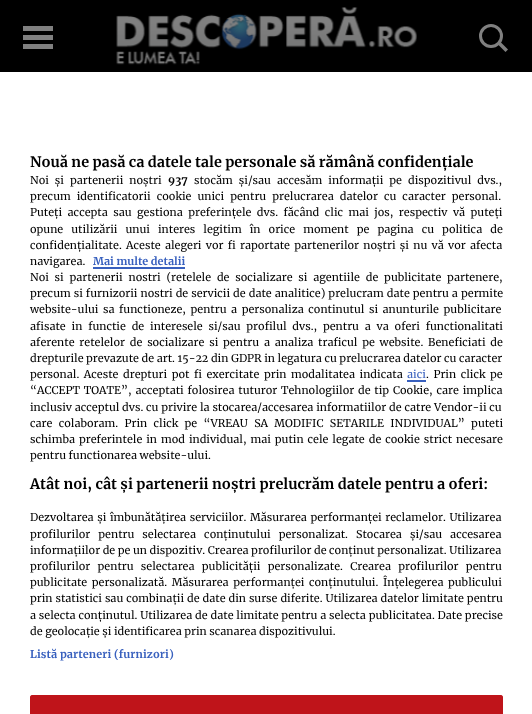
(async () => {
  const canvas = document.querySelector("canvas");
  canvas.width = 532;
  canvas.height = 714;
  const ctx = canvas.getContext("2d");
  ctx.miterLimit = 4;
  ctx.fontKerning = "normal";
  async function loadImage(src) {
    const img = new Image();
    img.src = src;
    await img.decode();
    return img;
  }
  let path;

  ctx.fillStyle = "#000000";
  ctx.fillRect(0, 0, 532, 714);
  for (const [x, y, w, h, color] of [
    [23, 35, 30, 5, "#808080"],
    [23, 26, 30, 5, "#808080"],
    [23, 44, 30, 5, "#808080"],
  ]) {
    ctx.fillStyle = color;
    ctx.fillRect(x, y, w, h);
  }
  ctx.drawImage(await loadImage("img/1.png"), 116, 7, 301, 58);
  ctx.beginPath();
  ctx.arc(491, 36, 10.5, 0, Math.PI * 2);
  ctx.strokeStyle = "#808080";
  ctx.lineWidth = 3;
  ctx.stroke();
  path = new Path2D("M497 43.5L499.5 41L508 49.5L505.5 52Z");
  ctx.fill(path);
  for (const [x, y, w, h, color] of [
    [0, 72, 532, 642, "#ffffff"],
    [93, 267, 92, 2, "#3860be"],
    [407, 380, 19, 2, "#3860be"],
  ]) {
    ctx.fillStyle = color;
    ctx.fillRect(x, y, w, h);
  }
  ctx.fillStyle = "#bf141a";
  ctx.beginPath();
  ctx.roundRect(30, 695, 473, 19, [3, 3, 0, 0]);
  ctx.fill();
  ctx.beginPath();
  ctx.roundRect(31, 696, 471, 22, 2);
  ctx.strokeStyle = "#bf141a";
  ctx.lineWidth = 2;
  ctx.stroke();
  ctx.font = "bold 14.4px Merriweather";
  ctx.fillStyle = "#000000";
  ctx.fillText("Nouă ne pasă ca datele tale personale să rămână confidențiale", 30, 167);
  ctx.wordSpacing = "3.5px";
  ctx.font = "10.8px Merriweather";
  ctx.fillText("Noi și partenerii noștri", 30, 184);
  ctx.wordSpacing = "0px";
  ctx.font = "bold 10.8px Merriweather";
  ctx.fillText("937", 168, 184);
  ctx.wordSpacing = "3.5px";
  ctx.font = "10.8px Merriweather";
  ctx.fillText("stocăm și/sau accesăm informații pe dispozitivul dvs.,", 194, 184);
  ctx.fillText("precum identificatorii cookie unici pentru prelucrarea datelor cu caracter personal.", 30, 200);
  ctx.wordSpacing = "2.9px";
  ctx.fillText("Puteți accepta sau gestiona preferințele dvs. făcând clic mai jos, respectiv vă puteți", 30, 216);
  ctx.wordSpacing = "5.5px";
  ctx.fillText("opune utilizării unui interes legitim în orice moment pe pagina cu politica de", 30, 233);
  ctx.wordSpacing = "1.75px";
  ctx.fillText("confidențialitate. Aceste alegeri vor fi raportate partenerilor noștri și nu vă vor afecta", 30, 249);
  ctx.wordSpacing = "0px";
  ctx.fillText("navigarea.", 30, 265);
  ctx.font = "bold 10.8px Merriweather";
  ctx.fillStyle = "#3860be";
  ctx.fillText("Mai multe detalii", 93, 265);
  ctx.wordSpacing = "3.25px";
  ctx.font = "10.8px Merriweather";
  ctx.fillStyle = "#000000";
  ctx.fillText("Noi si partenerii nostri (retelele de socializare si agentiile de publicitate partenere,", 30, 281);
  ctx.wordSpacing = "0.5px";
  ctx.fillText("precum si furnizorii nostri de servicii de date analitice) prelucram date pentru a permite", 30, 297);
  ctx.wordSpacing = "2px";
  ctx.fillText("website-ului sa functioneze, pentru a personaliza continutul si anunturile publicitare", 30, 313);
  ctx.wordSpacing = "3.25px";
  ctx.fillText("afisate in functie de interesele si/sau profilul dvs., pentru a va oferi functionalitati", 30, 330);
  ctx.wordSpacing = "2.25px";
  ctx.fillText("aferente retelelor de socializare si pentru a analiza traficul pe website. Beneficiati de", 30, 346);
  ctx.wordSpacing = "0px";
  ctx.fillText("drepturile prevazute de art. 15-22 din GDPR in legatura cu prelucrarea datelor cu caracter", 30, 362);
  ctx.wordSpacing = "2px";
  ctx.fillText("personal. Aceste drepturi pot fi exercitate prin modalitatea indicata", 30, 378);
  ctx.wordSpacing = "0px";
  ctx.fillStyle = "#3860be";
  ctx.fillText("aici", 407, 378);
  ctx.wordSpacing = "2px";
  ctx.fillStyle = "#000000";
  ctx.fillText(". Prin click pe", 426, 378);
  ctx.wordSpacing = "1.25px";
  ctx.fillText("“ACCEPT TOATE”, acceptati folosirea tuturor Tehnologiilor de tip Cookie, care implica", 30, 394);
  ctx.wordSpacing = "0.25px";
  ctx.fillText("inclusiv acceptul dvs. cu privire la stocarea/accesarea informatiilor de catre Vendor-ii cu", 30, 411);
  ctx.wordSpacing = "3.75px";
  ctx.fillText("care colaboram. Prin click pe “VREAU SA MODIFIC SETARILE INDIVIDUAL” puteti", 30, 427);
  ctx.wordSpacing = "1.4px";
  ctx.fillText("schimba preferintele in mod individual, mai putin cele legate de cookie strict necesare", 30, 443);
  ctx.wordSpacing = "0px";
  ctx.fillText("pentru functionarea website-ului.", 30, 459);
  ctx.font = "bold 14.4px Merriweather";
  ctx.fillText("Atât noi, cât și partenerii noștri prelucrăm datele pentru a oferi:", 30, 489);
  ctx.wordSpacing = "1px";
  ctx.font = "10.8px Merriweather";
  ctx.fillText("Dezvoltarea și îmbunătățirea serviciilor. Măsurarea performanței reclamelor. Utilizarea", 30, 521);
  ctx.wordSpacing = "5.5px";
  ctx.fillText("profilurilor pentru selectarea conținutului personalizat. Stocarea și/sau accesarea", 30, 538);
  ctx.wordSpacing = "0px";
  ctx.fillText("informațiilor de pe un dispozitiv. Crearea profilurilor de conținut personalizat. Utilizarea", 30, 554);
  ctx.wordSpacing = "4.75px";
  ctx.fillText("profilurilor pentru selectarea publicității personalizate. Crearea profilurilor pentru", 30, 570);
  ctx.wordSpacing = "2px";
  ctx.fillText("publicitate personalizată. Măsurarea performanței conținutului. Înțelegerea publicului", 30, 586);
  ctx.wordSpacing = "0.4px";
  ctx.fillText("prin statistici sau combinații de date din surse diferite. Utilizarea datelor limitate pentru", 30, 602);
  ctx.wordSpacing = "0.25px";
  ctx.fillText("a selecta conținutul. Utilizarea de date limitate pentru a selecta publicitatea. Date precise", 30, 619);
  ctx.wordSpacing = "0px";
  ctx.fillText("de geolocație și identificarea prin scanarea dispozitivului.", 30, 635);
  ctx.letterSpacing = "0.1px";
  ctx.font = "bold 10.8px Merriweather";
  ctx.fillStyle = "#3860be";
  ctx.fillText("Listă parteneri (furnizori)", 30, 658);
})();
